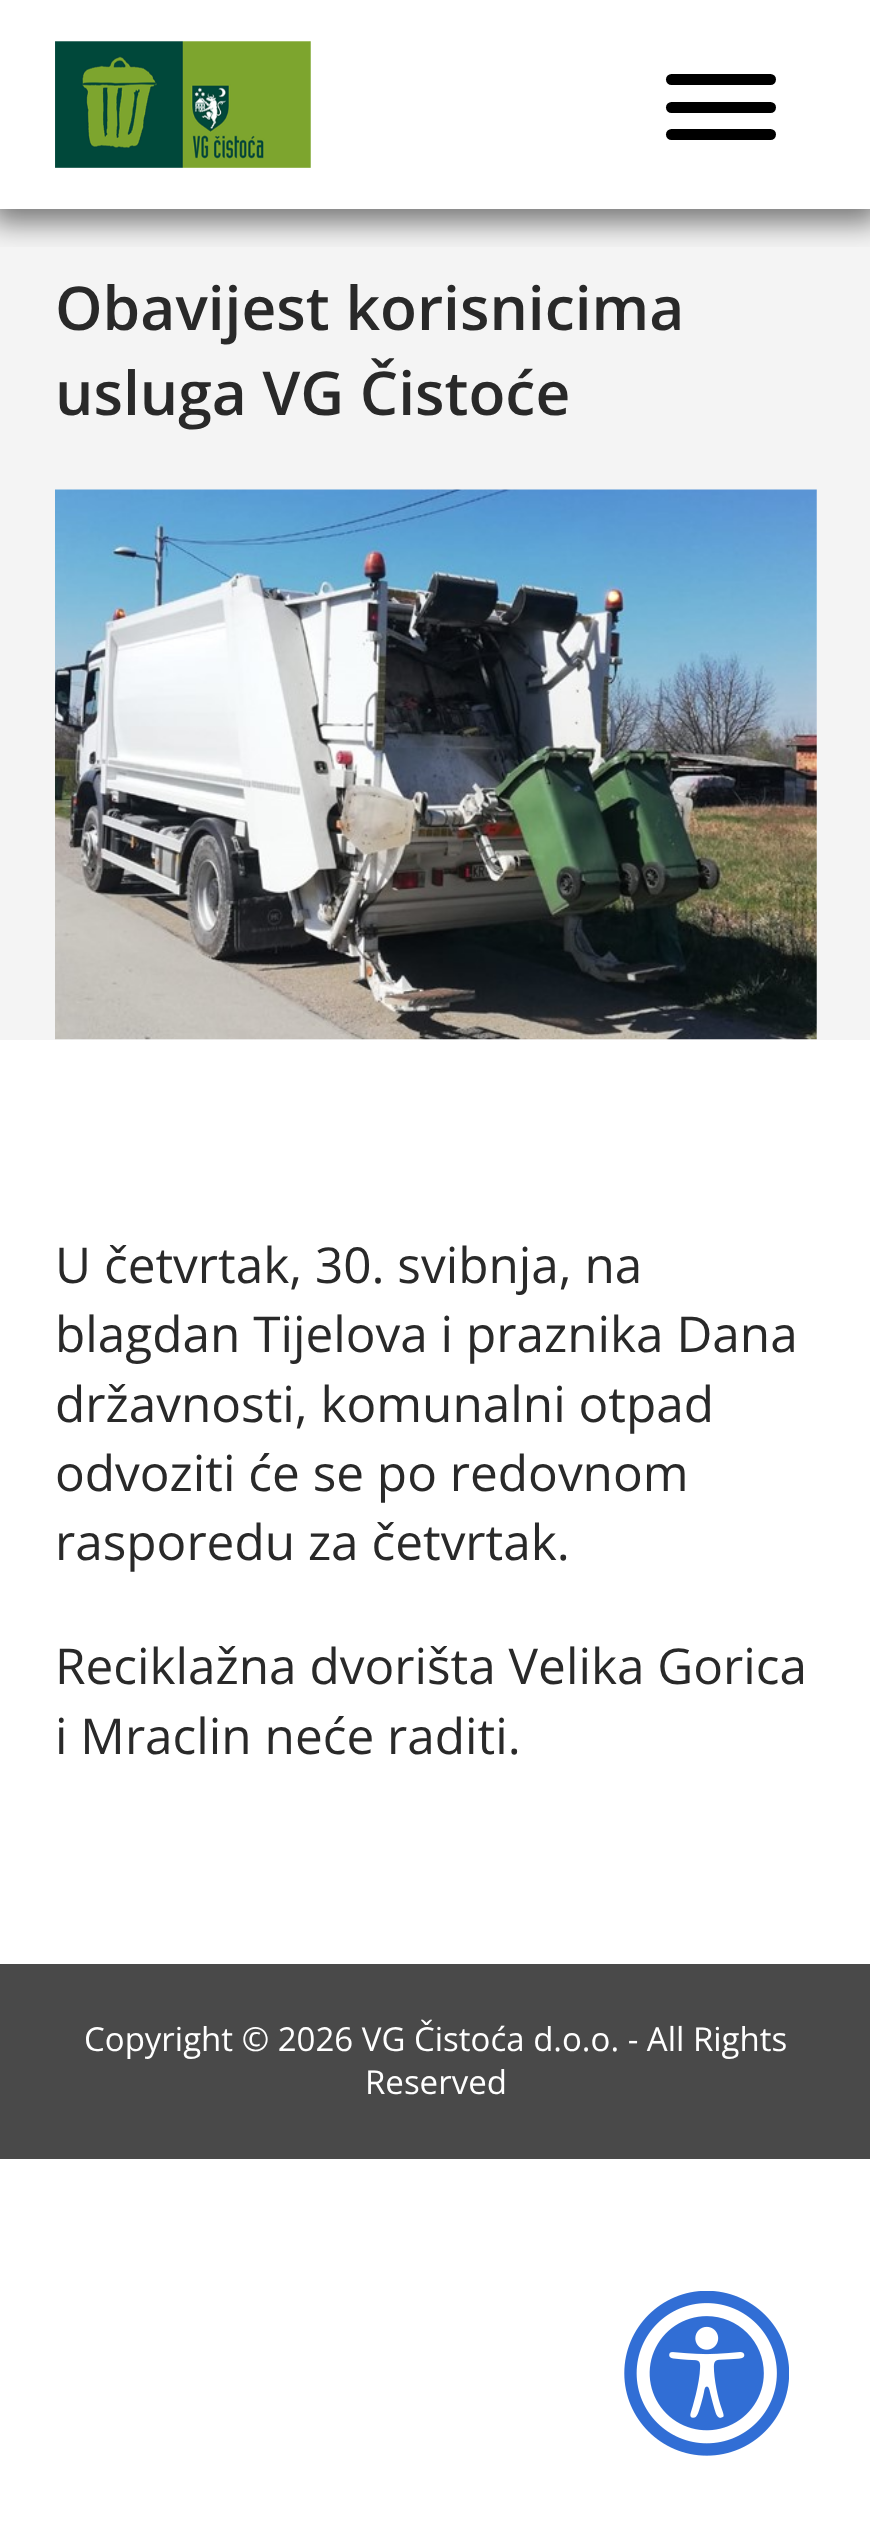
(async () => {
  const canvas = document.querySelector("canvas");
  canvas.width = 870;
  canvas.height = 2537;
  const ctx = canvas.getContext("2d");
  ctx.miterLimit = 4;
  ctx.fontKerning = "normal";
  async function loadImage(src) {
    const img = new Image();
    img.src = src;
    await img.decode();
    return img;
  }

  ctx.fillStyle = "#ffffff";
  ctx.fillRect(0, 0, 870, 2537);
  ctx.fillStyle = "#f4f4f4";
  ctx.fillRect(0, 209, 870, 831);
  ctx.save();
  ctx.beginPath();
  ctx.rect(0, 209, 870, 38);
  ctx.clip();
  ctx.fillStyle = "rgba(0, 0, 0, 0.5)";
  ctx.filter = "blur(14px)";
  ctx.beginPath();
  ctx.rect(-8, -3, 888, 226);
  ctx.fill();
  ctx.filter = "none";
  ctx.restore();
  ctx.drawImage(await loadImage("img/1.png"), 55, 41, 256, 127);
  ctx.fillStyle = "#000000";
  ctx.beginPath();
  ctx.roundRect(666, 74, 110, 11, 5.5);
  ctx.fill();
  ctx.beginPath();
  ctx.roundRect(666, 102, 110, 11, 5.5);
  ctx.fill();
  ctx.beginPath();
  ctx.roundRect(666, 129, 110, 11, 5.5);
  ctx.fill();
  ctx.drawImage(await loadImage("img/2.png"), 55, 489, 762, 551);
  ctx.fillStyle = "#494949";
  ctx.fillRect(0, 1964, 870, 195);
  ctx.drawImage(await loadImage("img/3.png"), 624, 2291, 165, 165);
  ctx.font = "600 60.5px Open Sans";
  ctx.fillStyle = "#292929";
  ctx.fillText("Obavijest korisnicima", 55, 330);
  ctx.fillText("usluga VG Čistoće", 55, 415);
  ctx.font = "49.5px Open Sans";
  for (const [text, x, y] of [
    ["U četvrtak, 30. svibnja, na", 55, 1283],
    ["blagdan Tijelova i praznika Dana", 55, 1352],
    ["državnosti, komunalni otpad", 55, 1422],
    ["odvoziti će se po redovnom", 55, 1491],
    ["rasporedu za četvrtak.", 55, 1560],
    ["Reciklažna dvorišta Velika Gorica", 55, 1684],
    ["i Mraclin neće raditi.", 55, 1754],
  ]) {
    ctx.fillText(text, x, y);
  }
  ctx.font = "33px Open Sans";
  ctx.fillStyle = "#ffffff";
  ctx.fillText("Copyright © 2026 VG Čistoća d.o.o. - All Rights", 84, 2051);
  ctx.fillText("Reserved", 365, 2094);
})();
